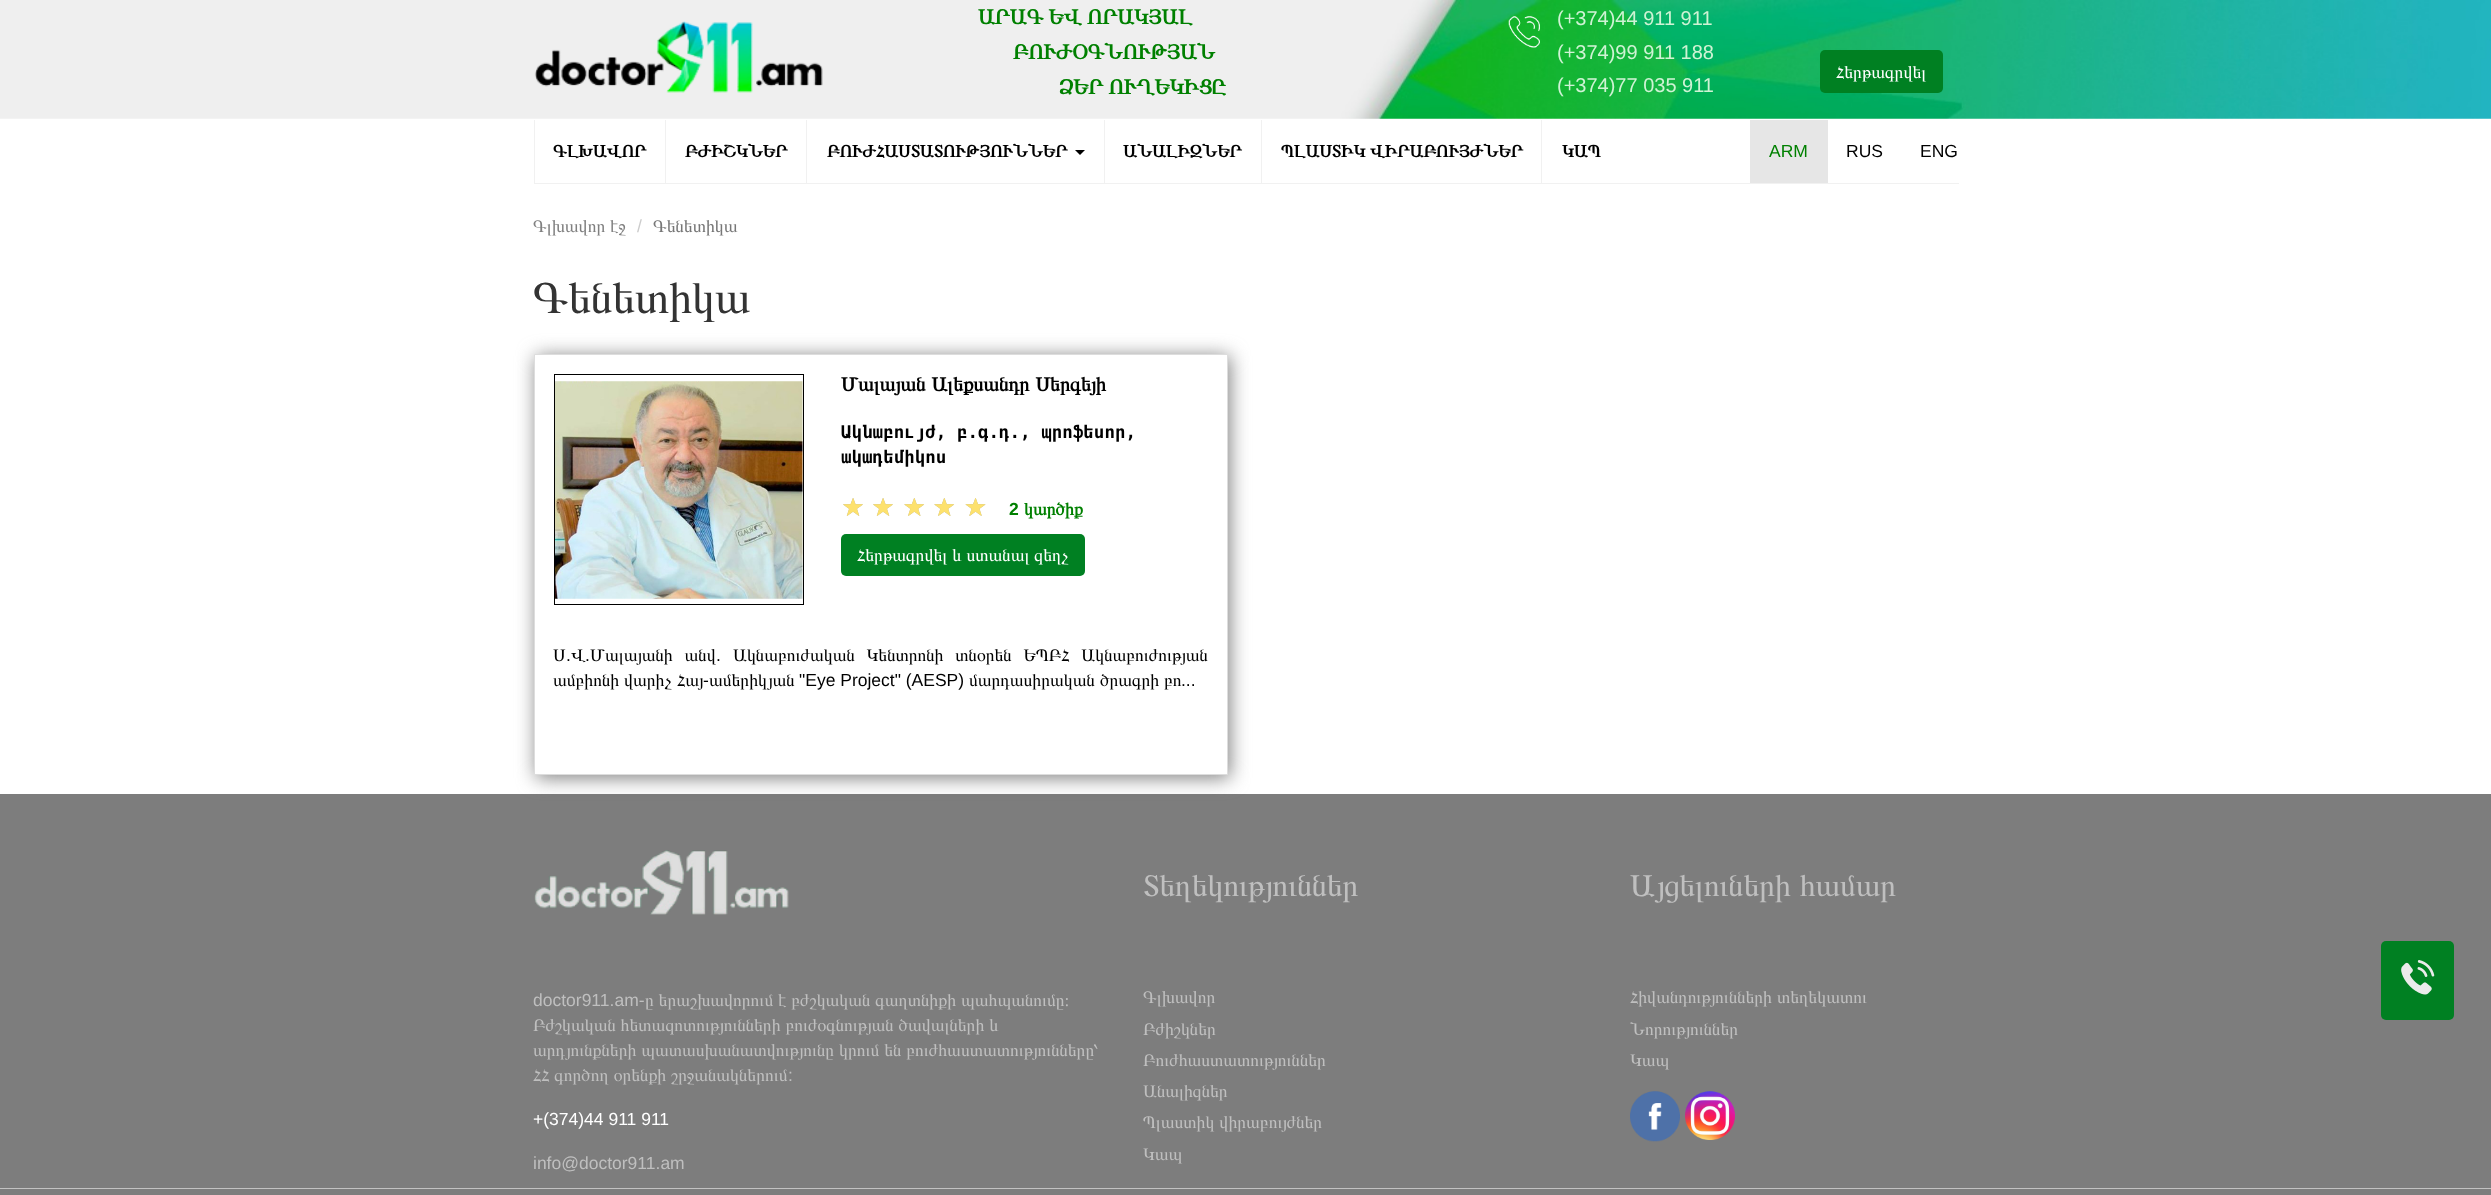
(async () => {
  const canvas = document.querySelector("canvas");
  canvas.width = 2491;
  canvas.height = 1195;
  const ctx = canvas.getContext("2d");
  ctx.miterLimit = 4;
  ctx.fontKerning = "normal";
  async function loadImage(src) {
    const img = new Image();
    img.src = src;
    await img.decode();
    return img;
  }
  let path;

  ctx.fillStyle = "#ffffff";
  ctx.fillRect(0, 0, 2491, 1195);
  ctx.drawImage(await loadImage("img/1.png"), 0, 0, 2491, 119);
  ctx.drawImage(await loadImage("img/2.png"), 534, 21, 289, 72);
  ctx.drawImage(await loadImage("img/3.png"), 1508, 16, 32, 32);
  ctx.fillStyle = "#008022";
  ctx.beginPath();
  ctx.roundRect(1820, 50, 123, 43, 5);
  ctx.fill();
  for (const [x, y, w, h, color] of [
    [534, 183, 1425, 1, "#f1f1f1"],
    [534, 120, 1, 63, "#f1f1f1"],
    [665, 120, 1, 63, "#f1f1f1"],
    [806, 120, 1, 63, "#f1f1f1"],
  ]) {
    ctx.fillStyle = color;
    ctx.fillRect(x, y, w, h);
  }
  ctx.fillStyle = "#000000";
  path = new Path2D("M1075 150H1085L1080 155Z");
  ctx.fill(path);
  for (const [x, y, w, h, color] of [
    [1104, 120, 1, 63, "#f1f1f1"],
    [1261, 120, 1, 63, "#f1f1f1"],
    [1541, 120, 1, 63, "#f1f1f1"],
    [1750, 120, 78, 63, "#e6e6e6"],
    [0, 794, 2491, 401, "#7d7d7d"],
  ]) {
    ctx.fillStyle = color;
    ctx.fillRect(x, y, w, h);
  }
  ctx.fillStyle = "#808080";
  ctx.filter = "blur(9.5px)";
  ctx.beginPath();
  ctx.rect(536, 356, 694, 422);
  ctx.fill();
  ctx.filter = "none";
  ctx.fillStyle = "#ffffff";
  ctx.beginPath();
  ctx.rect(534.5, 354.5, 693, 420);
  ctx.fill();
  ctx.strokeStyle = "#dddddd";
  ctx.stroke();
  ctx.drawImage(await loadImage("img/4.png"), 555, 381, 248, 218);
  ctx.strokeStyle = "#000000";
  ctx.strokeRect(554.5, 374.5, 249, 230);
  ctx.drawImage(await loadImage("img/5.png"), 843, 498, 20, 18);
  ctx.drawImage(await loadImage("img/5.png"), 873, 498, 20, 18);
  ctx.drawImage(await loadImage("img/6.png"), 904, 498, 20, 18);
  ctx.drawImage(await loadImage("img/6.png"), 934, 498, 20, 18);
  ctx.drawImage(await loadImage("img/7.png"), 965, 498, 21, 18);
  ctx.drawImage(await loadImage("img/8.png"), 843, 498, 20, 18);
  ctx.drawImage(await loadImage("img/8.png"), 873, 498, 20, 18);
  ctx.drawImage(await loadImage("img/9.png"), 904, 498, 21, 18);
  ctx.drawImage(await loadImage("img/9.png"), 934, 498, 21, 18);
  ctx.drawImage(await loadImage("img/10.png"), 965, 498, 21, 18);
  ctx.fillStyle = "#008022";
  ctx.beginPath();
  ctx.roundRect(841, 534, 244, 42, 5);
  ctx.fill();
  ctx.drawImage(await loadImage("img/11.png"), 534, 850, 255, 65);
  ctx.drawImage(await loadImage("img/12.png"), 1630, 1091, 50, 51);
  ctx.drawImage(await loadImage("img/13.png"), 1685, 1091, 50, 49);
  ctx.fillStyle = "#c2c2c2";
  ctx.fillRect(0, 1188, 2491, 1);
  ctx.fillStyle = "#008022";
  ctx.beginPath();
  ctx.roundRect(2381, 941, 73, 79, 5);
  ctx.fill();
  ctx.drawImage(await loadImage("img/14.png"), 2401, 960, 34, 35);
  ctx.font = "bold 21.25px FreeSerif";
  ctx.fillStyle = "#008000";
  for (const [text, x, y] of [
    ["ԱՐԱԳ ԵՎ ՈՐԱԿՅԱԼ", 978, 24],
    ["ԲՈՒԺՕԳՆՈՒԹՅԱՆ", 1013, 59],
    ["ՁԵՐ ՈՒՂԵԿԻՑԸ", 1059, 94],
  ]) {
    ctx.fillText(text, x, y);
  }
  ctx.font = "20px Liberation Sans";
  ctx.fillStyle = "#cff3d4";
  for (const [text, x, y] of [
    ["(+374)44 911 911", 1557, 25],
    ["(+374)99 911 188", 1557, 59],
    ["(+374)77 035 911", 1557, 92],
  ]) {
    ctx.fillText(text, x, y);
  }
  ctx.font = "17.5px FreeSerif";
  ctx.fillStyle = "#ffffff";
  ctx.fillText("Հերթագրվել", 1836, 78);
  ctx.font = "bold 17.5px FreeSerif";
  ctx.fillStyle = "#000000";
  for (const [text, x, y] of [
    ["ԳԼԽԱՎՈՐ", 553, 157],
    ["ԲԺԻՇԿՆԵՐ", 685, 157],
    ["ԲՈՒԺՀԱՍՏԱՏՈՒԹՅՈՒՆՆԵՐ", 827, 157],
    ["ԱՆԱԼԻԶՆԵՐ", 1123, 157],
  ]) {
    ctx.fillText(text, x, y);
  }
  ctx.wordSpacing = "0.5px";
  ctx.fillText("ՊԼԱՍՏԻԿ ՎԻՐԱԲՈՒՅԺՆԵՐ", 1281, 157);
  ctx.wordSpacing = "0px";
  ctx.fillText("ԿԱՊ", 1562, 157);
  ctx.font = "17.5px Liberation Sans";
  ctx.fillStyle = "#008000";
  ctx.fillText("ARM", 1769, 157);
  ctx.fillStyle = "#000000";
  ctx.fillText("RUS", 1846, 157);
  ctx.fillText("ENG", 1920, 157);
  ctx.wordSpacing = "0.5px";
  ctx.font = "17.5px FreeSerif";
  ctx.fillStyle = "#808080";
  ctx.fillText("Գլխավոր էջ", 533, 232);
  ctx.wordSpacing = "0px";
  ctx.font = "17.5px Liberation Sans";
  ctx.fillStyle = "#cccccc";
  ctx.fillText("/", 637, 232);
  ctx.font = "17.5px FreeSerif";
  ctx.fillStyle = "#777777";
  ctx.fillText("Գենետիկա", 653, 232);
  ctx.font = "45px FreeSerif";
  ctx.fillStyle = "#333333";
  ctx.fillText("Գենետիկա", 533, 313);
  ctx.wordSpacing = "1px";
  ctx.font = "bold 20px FreeSerif";
  ctx.fillStyle = "#000000";
  ctx.fillText("Մալայան Ալեքսանդր Սերգեյի", 841, 391);
  ctx.wordSpacing = "0px";
  ctx.font = "bold 17.5px DejaVu Sans Mono";
  ctx.fillText("Ակնաբույժ, բ.գ.դ., պրոֆեսոր,", 841, 438);
  ctx.fillText("ակադեմիկոս", 841, 463);
  ctx.font = "bold 17.5px Liberation Sans";
  ctx.fillStyle = "#008000";
  ctx.fillText("2", 1009, 515);
  ctx.font = "bold 17.5px FreeSerif";
  ctx.fillText("կարծիք", 1024, 515);
  ctx.wordSpacing = "0.5px";
  ctx.font = "17.5px FreeSerif";
  ctx.fillStyle = "#ffffff";
  ctx.fillText("Հերթագրվել և ստանալ զեղչ", 857, 561);
  ctx.wordSpacing = "0px";
  ctx.fillStyle = "#000000";
  ctx.fillText("Ս", 553, 661);
  ctx.font = "17.5px Liberation Sans";
  ctx.fillText(".", 566, 661);
  ctx.font = "17.5px FreeSerif";
  ctx.fillText("Վ", 571, 661);
  ctx.font = "17.5px Liberation Sans";
  ctx.fillText(".", 585, 661);
  ctx.wordSpacing = "7.5px";
  ctx.font = "17.5px FreeSerif";
  ctx.fillText("Մալայանի անվ", 590, 661);
  ctx.wordSpacing = "0px";
  ctx.font = "17.5px Liberation Sans";
  ctx.fillText(".", 716, 661);
  ctx.wordSpacing = "7.5px";
  ctx.font = "17.5px FreeSerif";
  ctx.fillText("Ակնաբուժական Կենտրոնի տնօրեն ԵՊԲՀ Ակնաբուժության", 733, 661);
  ctx.wordSpacing = "0px";
  for (const [text, x, y] of [
    ["ամբիոնի", 553, 686],
    ["վարիչ", 624, 686],
    ["Հայ", 677, 686],
  ]) {
    ctx.fillText(text, x, y);
  }
  ctx.font = "17.5px Liberation Sans";
  ctx.fillText("-", 703, 686);
  ctx.font = "17.5px FreeSerif";
  ctx.fillText("ամերիկյան", 709, 686);
  ctx.font = "17.5px Liberation Sans";
  ctx.fillText("\"Eye Project\" (AESP)", 799, 686);
  ctx.font = "17.5px FreeSerif";
  for (const [text, x, y] of [
    ["մարդասիրական", 969, 686],
    ["ծրագրի", 1100, 686],
    ["բո", 1164, 686],
  ]) {
    ctx.fillText(text, x, y);
  }
  ctx.font = "17.5px Liberation Sans";
  ctx.fillText("...", 1181, 686);
  ctx.fillStyle = "#bfbfbf";
  ctx.fillText("doctor911.am-", 533, 1006);
  ctx.wordSpacing = "0.5px";
  ctx.font = "17.5px FreeSerif";
  for (const [text, x, y] of [
    ["ը երաշխավորում է բժշկական գաղտնիքի պահպանումը։", 645, 1006],
    ["Բժշկական հետազոտությունների բուժօգնության ծավալների և", 533, 1031],
    ["արդյունքների պատասխանատվությունը կրում են բուժհաստատությունները՝", 533, 1056],
    ["ՀՀ գործող օրենքի շրջանակներում", 533, 1081],
  ]) {
    ctx.fillText(text, x, y);
  }
  ctx.wordSpacing = "0px";
  ctx.font = "17.5px Liberation Sans";
  ctx.fillText(":", 788, 1081);
  ctx.fillStyle = "#ffffff";
  ctx.fillText("+(374)44 911 911", 533, 1125);
  ctx.fillStyle = "#bfbfbf";
  ctx.fillText("info@doctor911.am", 533, 1169);
  ctx.font = "31.25px FreeSerif";
  ctx.fillText("Տեղեկություններ", 1143, 896);
  ctx.font = "17.5px FreeSerif";
  for (const [text, x, y] of [
    ["Գլխավոր", 1143, 1003],
    ["Բժիշկներ", 1143, 1035],
    ["Բուժհաստատություններ", 1143, 1066],
    ["Անալիզներ", 1143, 1097],
  ]) {
    ctx.fillText(text, x, y);
  }
  ctx.wordSpacing = "0.5px";
  ctx.fillText("Պլաստիկ վիրաբույժներ", 1143, 1128);
  ctx.wordSpacing = "0px";
  ctx.fillText("Կապ", 1143, 1160);
  ctx.wordSpacing = "1px";
  ctx.font = "31.25px FreeSerif";
  ctx.fillText("Այցելուների համար", 1630, 896);
  ctx.wordSpacing = "0.5px";
  ctx.font = "17.5px FreeSerif";
  ctx.fillText("Հիվանդությունների տեղեկատու", 1630, 1003);
  ctx.wordSpacing = "0px";
  ctx.fillText("Նորություններ", 1630, 1035);
  ctx.fillText("Կապ", 1630, 1066);
})();
